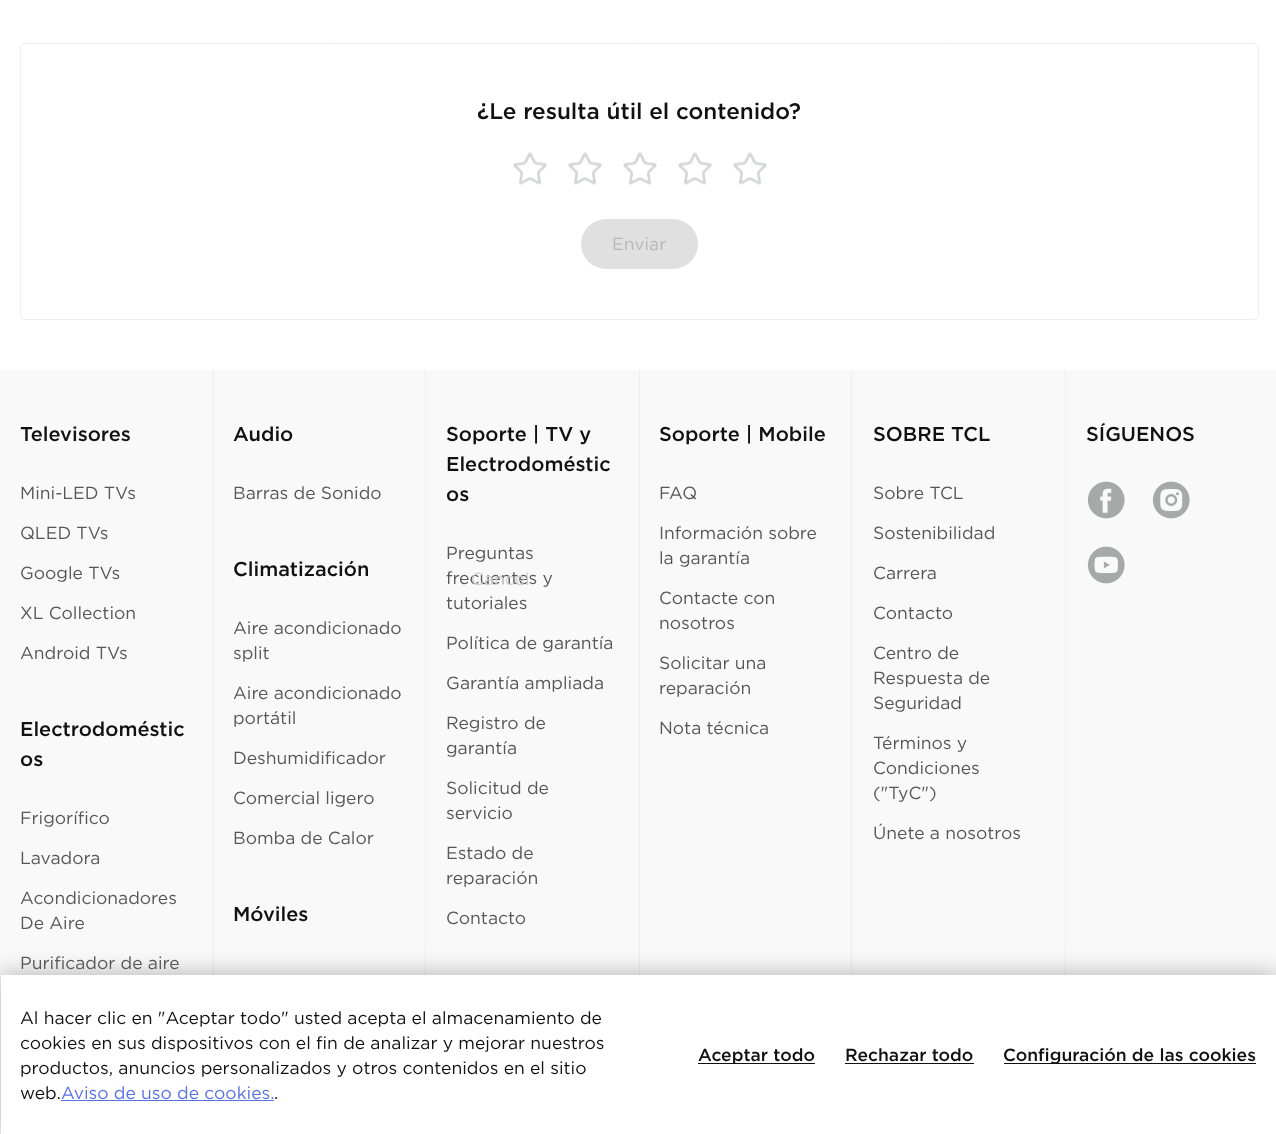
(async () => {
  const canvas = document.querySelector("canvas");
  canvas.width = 1276;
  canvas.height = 1134;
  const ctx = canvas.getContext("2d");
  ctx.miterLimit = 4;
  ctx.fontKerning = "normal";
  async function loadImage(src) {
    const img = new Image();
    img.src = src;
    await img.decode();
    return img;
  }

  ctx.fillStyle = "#ffffff";
  ctx.fillRect(0, 0, 1276, 1134);
  ctx.beginPath();
  ctx.roundRect(20.5, 43.5, 1238, 276, 4.5);
  ctx.strokeStyle = "#eeeeee";
  ctx.stroke();
  ctx.drawImage(await loadImage("img/1.png"), 513, 152, 34, 33);
  ctx.drawImage(await loadImage("img/1.png"), 568, 152, 34, 33);
  ctx.drawImage(await loadImage("img/1.png"), 623, 152, 34, 33);
  ctx.drawImage(await loadImage("img/1.png"), 678, 152, 34, 33);
  ctx.drawImage(await loadImage("img/1.png"), 733, 152, 34, 33);
  ctx.fillStyle = "#e0e0e0";
  ctx.beginPath();
  ctx.roundRect(581, 219, 117, 50, 25);
  ctx.fill();
  for (const [x, y, w, h, color] of [
    [0, 370, 1276, 764, "#f9f9f9"],
    [213, 370, 1, 605, "#eeeeee"],
    [425, 370, 1, 605, "#eeeeee"],
    [639, 370, 1, 605, "#eeeeee"],
    [851, 370, 1, 605, "#eeeeee"],
    [1065, 370, 1, 605, "#eeeeee"],
  ]) {
    ctx.fillStyle = color;
    ctx.fillRect(x, y, w, h);
  }
  ctx.drawImage(await loadImage("img/2.png"), 1087, 481, 38, 38);
  ctx.drawImage(await loadImage("img/3.png"), 1152, 481, 38, 38);
  ctx.drawImage(await loadImage("img/4.png"), 1087, 546, 38, 38);
  ctx.fillStyle = "rgba(0, 0, 0, 0.3)";
  ctx.filter = "blur(12.5px)";
  ctx.beginPath();
  ctx.rect(1, 975, 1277, 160);
  ctx.fill();
  ctx.filter = "none";
  for (const [x, y, w, h, color] of [
    [1, 975, 1275, 159, "#ffffff"],
    [61, 1100, 213, 1, "#5971e5"],
    [698, 1063, 117, 1, "#111111"],
    [845, 1063, 129, 1, "#111111"],
    [1004, 1063, 252, 1, "#111111"],
  ]) {
    ctx.fillStyle = color;
    ctx.fillRect(x, y, w, h);
  }
  ctx.font = "500 22.5px Gotham";
  ctx.fillText("¿Le resulta útil el contenido?", 477, 119);
  ctx.font = "17.5px Gotham";
  ctx.fillStyle = "#b7b7b7";
  ctx.fillText("Enviar", 612, 250);
  ctx.font = "500 20px Gotham";
  ctx.fillStyle = "#111111";
  ctx.fillText("Televisores", 20, 441);
  ctx.font = "17.5px Gotham";
  ctx.fillStyle = "#575757";
  for (const [text, x, y] of [
    ["Mini-LED TVs", 20, 499],
    ["QLED TVs", 20, 539],
    ["Google TVs", 20, 579],
    ["XL Collection", 20, 619],
    ["Android TVs", 20, 659],
  ]) {
    ctx.fillText(text, x, y);
  }
  ctx.font = "500 20px Gotham";
  ctx.fillStyle = "#111111";
  ctx.fillText("Electrodoméstic", 20, 736);
  ctx.fillText("os", 20, 766);
  ctx.font = "17.5px Gotham";
  ctx.fillStyle = "#575757";
  for (const [text, x, y] of [
    ["Frigorífico", 20, 824],
    ["Lavadora", 20, 864],
    ["Acondicionadores", 20, 904],
    ["De Aire", 20, 929],
    ["Purificador de aire", 20, 969],
  ]) {
    ctx.fillText(text, x, y);
  }
  ctx.font = "500 20px Gotham";
  ctx.fillStyle = "#111111";
  ctx.fillText("Audio", 233, 441);
  ctx.font = "17.5px Gotham";
  ctx.fillStyle = "#575757";
  ctx.fillText("Barras de Sonido", 233, 499);
  ctx.font = "500 20px Gotham";
  ctx.fillStyle = "#111111";
  ctx.fillText("Climatización", 233, 576);
  ctx.font = "17.5px Gotham";
  ctx.fillStyle = "#575757";
  for (const [text, x, y] of [
    ["Aire acondicionado", 233, 634],
    ["split", 233, 659],
    ["Aire acondicionado", 233, 699],
    ["portátil", 233, 724],
    ["Deshumidificador", 233, 764],
    ["Comercial ligero", 233, 804],
    ["Bomba de Calor", 233, 844],
  ]) {
    ctx.fillText(text, x, y);
  }
  ctx.font = "500 20px Gotham";
  ctx.fillStyle = "#111111";
  for (const [text, x, y] of [
    ["Móviles", 233, 921],
    ["Soporte | TV y", 446, 441],
    ["Electrodoméstic", 446, 471],
    ["os", 446, 501],
  ]) {
    ctx.fillText(text, x, y);
  }
  ctx.font = "17.5px Gotham";
  ctx.fillStyle = "#575757";
  for (const [text, x, y] of [
    ["Preguntas", 446, 559],
    ["frecuentes y", 446, 584],
    ["tutoriales", 446, 609],
    ["Política de garantía", 446, 649],
    ["Garantía ampliada", 446, 689],
    ["Registro de", 446, 729],
    ["garantía", 446, 754],
    ["Solicitud de", 446, 794],
    ["servicio", 446, 819],
    ["Estado de", 446, 859],
    ["reparación", 446, 884],
    ["Contacto", 446, 924],
  ]) {
    ctx.fillText(text, x, y);
  }
  ctx.font = "500 20px Gotham";
  ctx.fillStyle = "#111111";
  ctx.fillText("Soporte | Mobile", 659, 441);
  ctx.font = "17.5px Gotham";
  ctx.fillStyle = "#575757";
  for (const [text, x, y] of [
    ["FAQ", 659, 499],
    ["Información sobre", 659, 539],
    ["la garantía", 659, 564],
    ["Contacte con", 659, 604],
    ["nosotros", 659, 629],
    ["Solicitar una", 659, 669],
    ["reparación", 659, 694],
    ["Nota técnica", 659, 734],
  ]) {
    ctx.fillText(text, x, y);
  }
  ctx.font = "500 20px Gotham";
  ctx.fillStyle = "#111111";
  ctx.fillText("SOBRE TCL", 873, 441);
  ctx.font = "17.5px Gotham";
  ctx.fillStyle = "#575757";
  for (const [text, x, y] of [
    ["Sobre TCL", 873, 499],
    ["Sostenibilidad", 873, 539],
    ["Carrera", 873, 579],
    ["Contacto", 873, 619],
    ["Centro de", 873, 659],
    ["Respuesta de", 873, 684],
    ["Seguridad", 873, 709],
    ["Términos y", 873, 749],
    ["Condiciones", 873, 774],
    ["(\"TyC\")", 873, 799],
    ["Únete a nosotros", 873, 839],
  ]) {
    ctx.fillText(text, x, y);
  }
  ctx.font = "500 20px Gotham";
  ctx.fillStyle = "#111111";
  ctx.fillText("SÍGUENOS", 1086, 441);
  ctx.font = "17.5px Gotham";
  for (const [text, x, y] of [
    ["Al hacer clic en \"Aceptar todo\" usted acepta el almacenamiento de", 20, 1024],
    ["cookies en sus dispositivos con el fin de analizar y mejorar nuestros", 20, 1049],
    ["productos, anuncios personalizados y otros contenidos en el sitio", 20, 1074],
    ["web.", 20, 1099],
  ]) {
    ctx.fillText(text, x, y);
  }
  ctx.fillStyle = "#5971e5";
  ctx.fillText("Aviso de uso de cookies.", 61, 1099);
  ctx.fillStyle = "#111111";
  ctx.fillText(".", 274, 1099);
  ctx.font = "500 17.5px Gotham";
  for (const [text, x, y] of [
    ["Aceptar todo", 698, 1061],
    ["Rechazar todo", 845, 1061],
    ["Configuración de las cookies", 1003, 1061],
  ]) {
    ctx.fillText(text, x, y);
  }
  ctx.font = "17.5px Gotham";
  ctx.fillStyle = "#d1d1d1";
  ctx.fillText("Cancel", 471, 585);
})();
